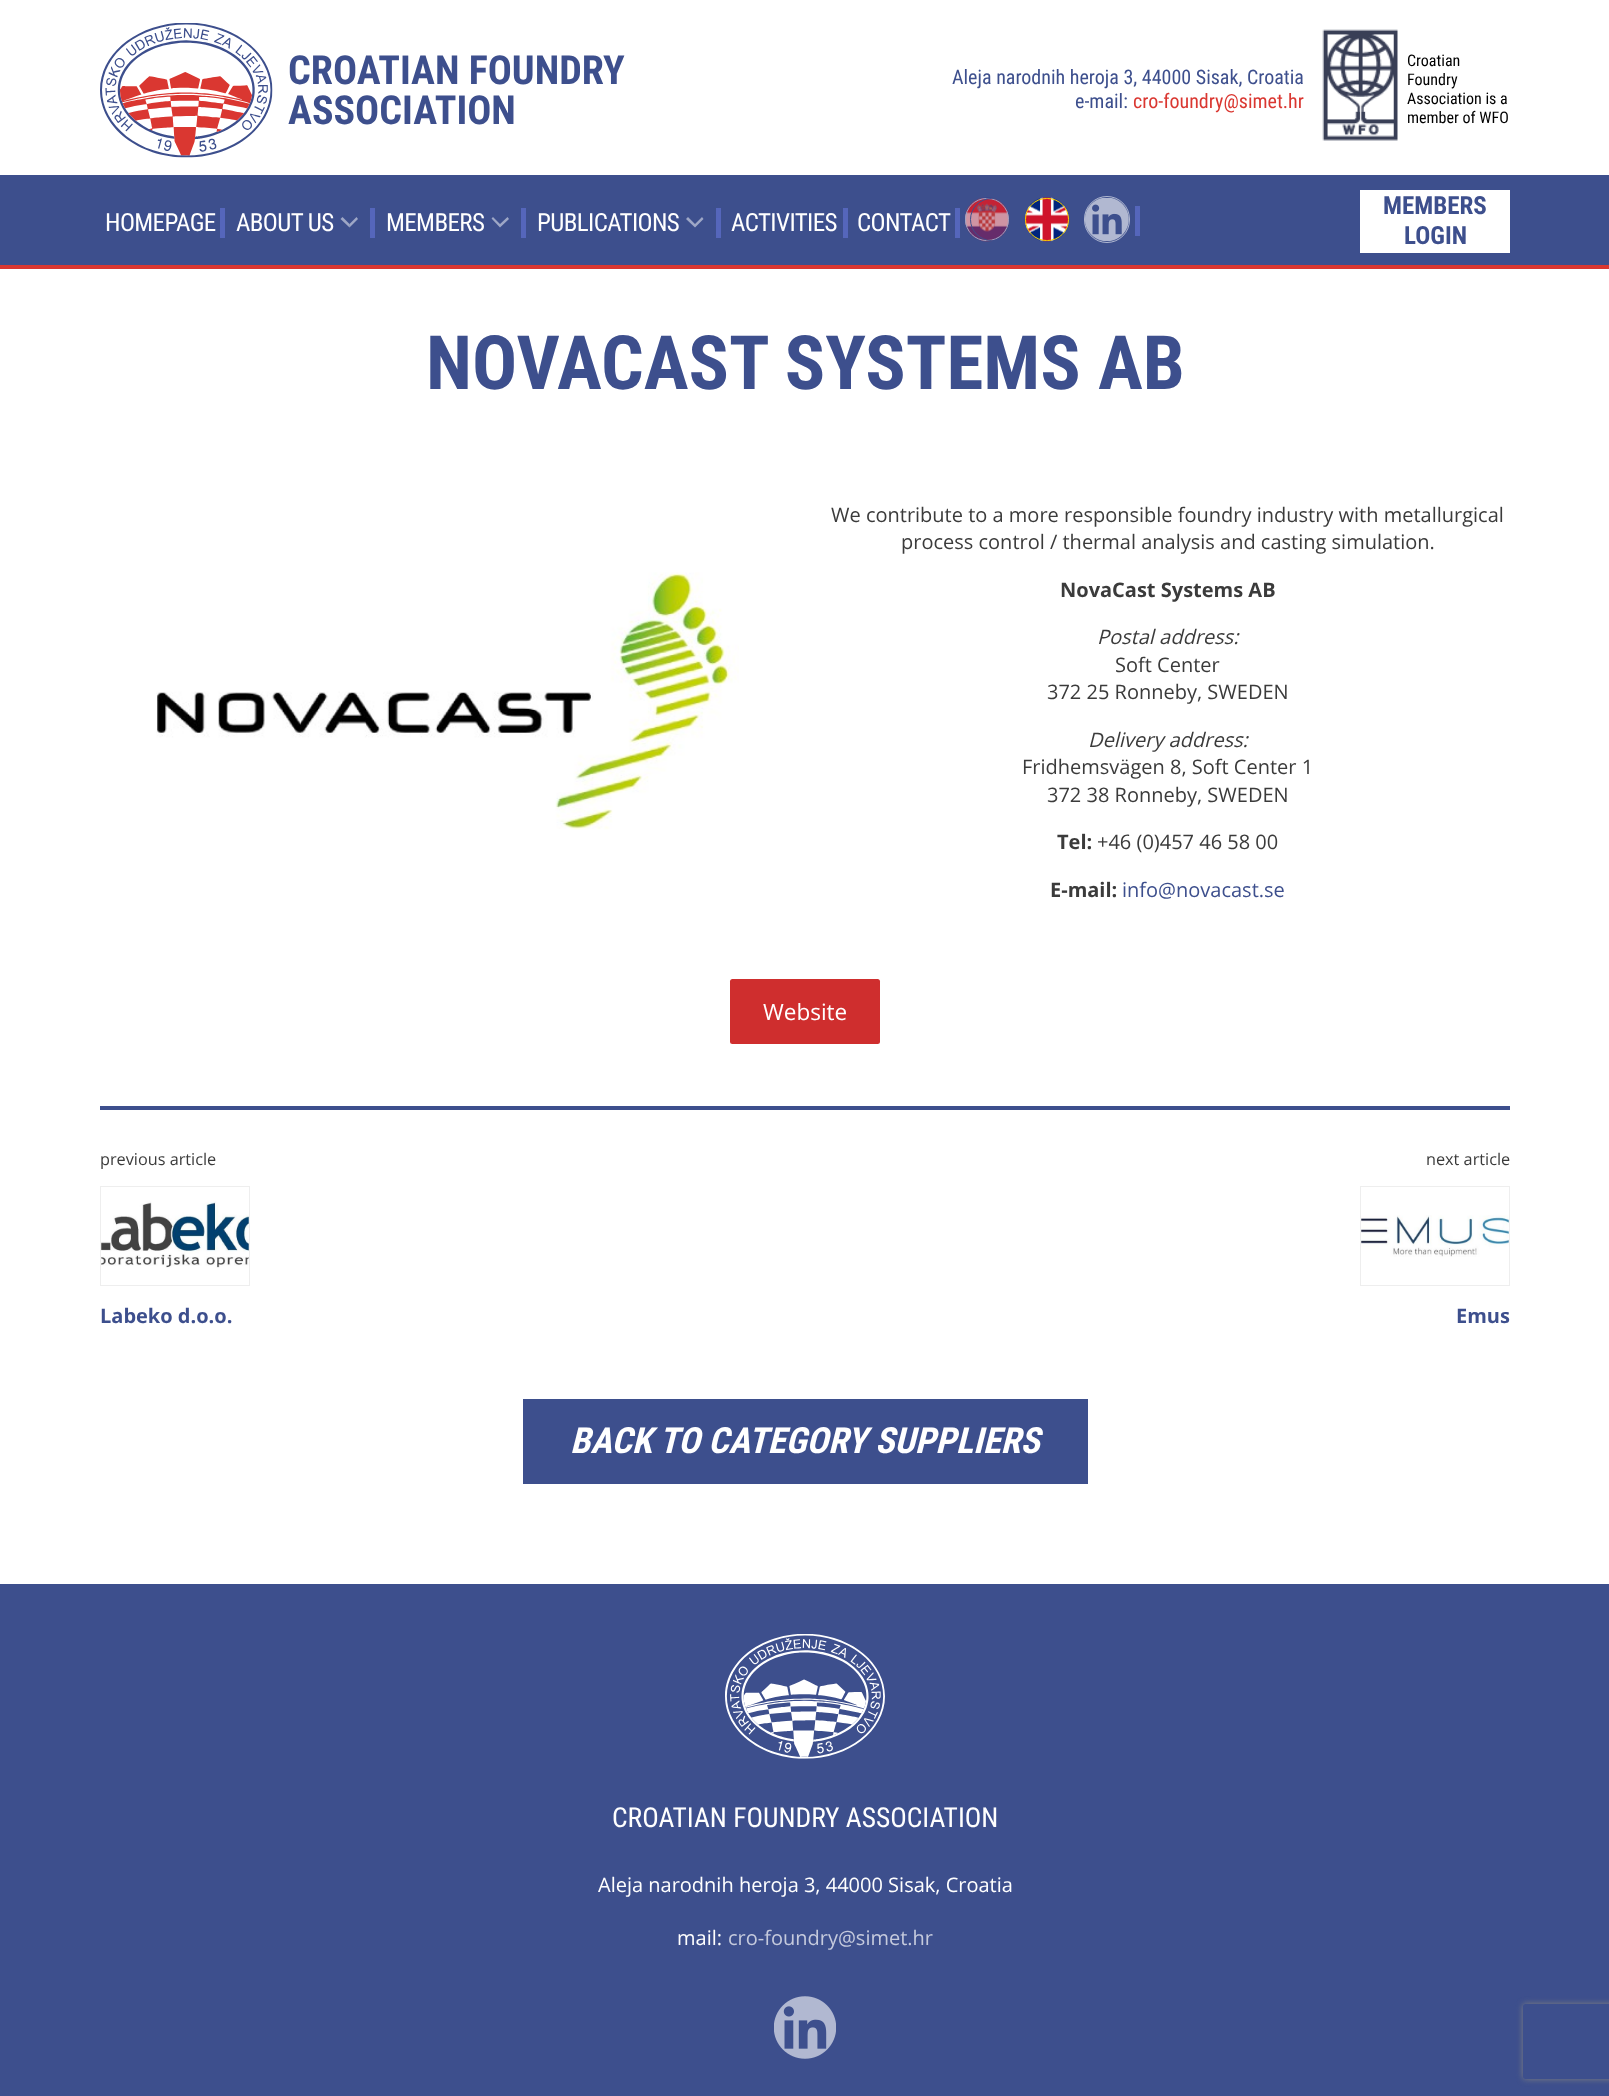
(async () => {
  const canvas = document.querySelector("canvas");
  canvas.width = 1609;
  canvas.height = 2096;
  const ctx = canvas.getContext("2d");
  ctx.miterLimit = 4;
  ctx.fontKerning = "normal";
  async function loadImage(src) {
    const img = new Image();
    img.src = src;
    await img.decode();
    return img;
  }
  let path;

  ctx.fillStyle = "#ffffff";
  ctx.fillRect(0, 0, 1609, 2096);
  ctx.drawImage(await loadImage("img/1.png"), 100, 23, 173, 135);
  ctx.drawImage(await loadImage("img/2.png"), 1322, 29, 76, 112);
  for (const [x, y, w, h, color] of [
    [0, 175, 1609, 90, "#3d4f8d"],
    [0, 265, 1609, 4, "#da3731"],
    [220, 208, 5, 30, "#5566bb"],
    [370, 208, 5, 30, "#5566bb"],
  ]) {
    ctx.fillStyle = color;
    ctx.fillRect(x, y, w, h);
  }
  ctx.fillStyle = "#9ea7c6";
  path = new Path2D("M358 219L349.5 227.5V224L356.5 217Z");
  ctx.fill(path);
  ctx.fillStyle = "rgba(255, 255, 255, 0.5)";
  path = new Path2D("M349.5 227.5L340.5 219L342.5 217L349.5 224Z");
  ctx.fill(path);
  ctx.fillStyle = "#5566bb";
  ctx.fillRect(521, 208, 5, 30);
  ctx.fillStyle = "#9ea7c6";
  path = new Path2D("M509 219L500 227.5V224L507.5 217ZM500 227.5L491.5 218.5L493 217L500 224Z");
  ctx.fill(path);
  ctx.fillStyle = "#5566bb";
  ctx.fillRect(716, 208, 5, 30);
  ctx.fillStyle = "#9ea7c6";
  path = new Path2D("M703.5 219L695 227.5V224L702 217ZM695 227.5L686 219L688 217L695 224Z");
  ctx.fill(path);
  ctx.fillStyle = "#5566bb";
  ctx.fillRect(843, 208, 5, 30);
  ctx.fillRect(955, 208, 5, 30);
  ctx.fillStyle = "#9e2847";
  ctx.beginPath();
  ctx.roundRect(965, 198, 44, 43, 21.5);
  ctx.fill();
  ctx.drawImage(await loadImage("img/3.png"), 965, 197, 44, 45);
  ctx.beginPath();
  ctx.roundRect(965.5, 198.5, 43, 42, 21);
  ctx.strokeStyle = "#9ea7c6";
  ctx.stroke();
  ctx.beginPath();
  ctx.roundRect(970.5, 198.5, 43, 42, 21);
  ctx.strokeStyle = "#3d4f8d";
  ctx.stroke();
  ctx.drawImage(await loadImage("img/4.png"), 1025, 197, 44, 45);
  ctx.beginPath();
  ctx.roundRect(1025.5, 198.5, 43, 42, 21);
  ctx.strokeStyle = "#ffd700";
  ctx.stroke();
  ctx.fillStyle = "#5566bb";
  ctx.fillRect(1135, 206, 5, 30);
  ctx.drawImage(await loadImage("img/5.png"), 1085, 198, 44, 43);
  ctx.beginPath();
  ctx.roundRect(1084.5, 196.5, 45, 46, 22.5);
  ctx.strokeStyle = "rgba(255, 255, 255, 0.6)";
  ctx.stroke();
  ctx.fillStyle = "#ffffff";
  ctx.fillRect(1360, 190, 150, 63);
  ctx.drawImage(await loadImage("img/6.png"), 156, 572, 583, 258);
  ctx.fillStyle = "#cf2e2e";
  ctx.beginPath();
  ctx.roundRect(730, 979, 150, 65, 2.5);
  ctx.fill();
  ctx.fillStyle = "#3d4f8d";
  ctx.fillRect(100, 1106, 1410, 4);
  ctx.strokeStyle = "#eeeeee";
  ctx.strokeRect(100.5, 1186.5, 149, 99);
  ctx.drawImage(await loadImage("img/7.png"), 101, 1200, 148, 68);
  ctx.strokeRect(1360.5, 1186.5, 149, 99);
  ctx.drawImage(await loadImage("img/8.png"), 1361, 1215, 148, 42);
  ctx.fillRect(523, 1399, 565, 85);
  ctx.fillRect(0, 1584, 1609, 512);
  ctx.drawImage(await loadImage("img/9.png"), 725, 1634, 160, 125);
  ctx.drawImage(await loadImage("img/10.png"), 774, 1996, 62, 63);
  ctx.save();
  path = new Path2D("M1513 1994H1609V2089H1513ZM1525.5 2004H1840.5C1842 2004 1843 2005 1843 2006.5V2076.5C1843 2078 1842 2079 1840.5 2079H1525.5C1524 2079 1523 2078 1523 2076.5V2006.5C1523 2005 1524 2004 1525.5 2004Z");
  ctx.clip(path, "evenodd");
  ctx.fillStyle = "#808080";
  ctx.filter = "blur(3px)";
  ctx.beginPath();
  ctx.roundRect(1523, 2004, 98, 75, 2.5);
  ctx.fill();
  ctx.filter = "none";
  ctx.restore();
  ctx.font = "bold 40px Roboto Condensed";
  ctx.fillText("CROATIAN FOUNDRY", 288, 84);
  ctx.fillText("ASSOCIATION", 288, 124);
  ctx.font = "20px Roboto Condensed";
  ctx.fillText("Aleja narodnih heroja 3, 44000 Sisak, Croatia", 952, 84);
  ctx.fillText("e-mail:", 1075, 108);
  ctx.fillStyle = "#da3731";
  ctx.fillText("cro-foundry@simet.hr", 1133, 108);
  ctx.font = "16px Roboto Condensed";
  ctx.fillStyle = "#000000";
  for (const [text, x, y] of [
    ["Croatian", 1407, 66],
    ["Foundry", 1407, 85],
    ["Association is a", 1407, 104],
    ["member of WFO", 1407, 123],
  ]) {
    ctx.fillText(text, x, y);
  }
  ctx.letterSpacing = "-0.6px";
  ctx.font = "25px Roboto Condensed";
  ctx.fillStyle = "#ffffff";
  for (const [text, x, y] of [
    ["HOMEPAGE", 105, 231],
    ["ABOUT US", 236, 231],
    ["MEMBERS", 386, 231],
    ["PUBLICATIONS", 537, 231],
    ["ACTIVITIES", 731, 231],
    ["CONTACT", 857, 231],
  ]) {
    ctx.fillText(text, x, y);
  }
  ctx.letterSpacing = "0px";
  ctx.font = "bold 25px Roboto Condensed";
  ctx.fillStyle = "#3d4f8d";
  ctx.fillText("MEMBERS", 1383, 214);
  ctx.fillText("LOGIN", 1404, 244);
  ctx.font = "bold 75px Roboto Condensed";
  ctx.fillText("NOVACAST SYSTEMS AB", 426, 389);
  ctx.font = "20px Open Sans";
  ctx.fillStyle = "#3b3b3b";
  ctx.fillText("We contribute to a more responsible foundry industry with metallurgical", 831, 522);
  ctx.fillText("process control / thermal analysis and casting simulation.", 901, 549);
  ctx.font = "bold 20px Open Sans";
  ctx.fillText("NovaCast Systems AB", 1060, 597);
  ctx.font = "italic 20px Open Sans";
  ctx.fillText("Postal address:", 1097, 644);
  ctx.font = "20px Open Sans";
  ctx.fillText("Soft Center", 1115, 672);
  ctx.fillText("372 25 Ronneby, SWEDEN", 1047, 699);
  ctx.font = "italic 20px Open Sans";
  ctx.fillText("Delivery address:", 1088, 747);
  ctx.font = "20px Open Sans";
  ctx.fillText("Fridhemsvägen 8, Soft Center 1", 1022, 774);
  ctx.fillText("372 38 Ronneby, SWEDEN", 1047, 802);
  ctx.font = "bold 20px Open Sans";
  ctx.fillText("Tel:", 1057, 849);
  ctx.font = "20px Open Sans";
  ctx.fillText("+46 (0)457 46 58 00", 1097, 849);
  ctx.font = "bold 20px Open Sans";
  ctx.fillText("E-mail:", 1050, 897);
  ctx.font = "20px Open Sans";
  ctx.fillStyle = "#3d4f8d";
  ctx.fillText("info@novacast.se", 1122, 897);
  ctx.font = "22.5px Open Sans";
  ctx.fillStyle = "#ffffff";
  ctx.fillText("Website", 763, 1020);
  ctx.font = "16.25px Open Sans";
  ctx.fillStyle = "#3b3b3b";
  ctx.fillText("previous article", 100, 1165);
  ctx.font = "bold 20px Open Sans";
  ctx.fillStyle = "#3d4f8d";
  ctx.fillText("Labeko d.o.o.", 100, 1323);
  ctx.font = "16.25px Open Sans";
  ctx.fillStyle = "#3b3b3b";
  ctx.fillText("next article", 1426, 1165);
  ctx.font = "bold 20px Open Sans";
  ctx.fillStyle = "#3d4f8d";
  ctx.fillText("Emus", 1456, 1323);
  ctx.font = "italic bold 36px Roboto Condensed";
  ctx.fillStyle = "#ffffff";
  ctx.fillText("BACK TO CATEGORY SUPPLIERS", 570, 1453);
  ctx.font = "27.5px Roboto Condensed";
  ctx.fillText("CROATIAN FOUNDRY ASSOCIATION", 612, 1827);
  ctx.font = "20px Open Sans";
  ctx.fillText("Aleja narodnih heroja 3, 44000 Sisak, Croatia", 598, 1892);
  ctx.fillText("mail:", 677, 1945);
  ctx.fillStyle = "#c5cadd";
  ctx.fillText("cro-foundry@simet.hr", 728, 1945);
})();
